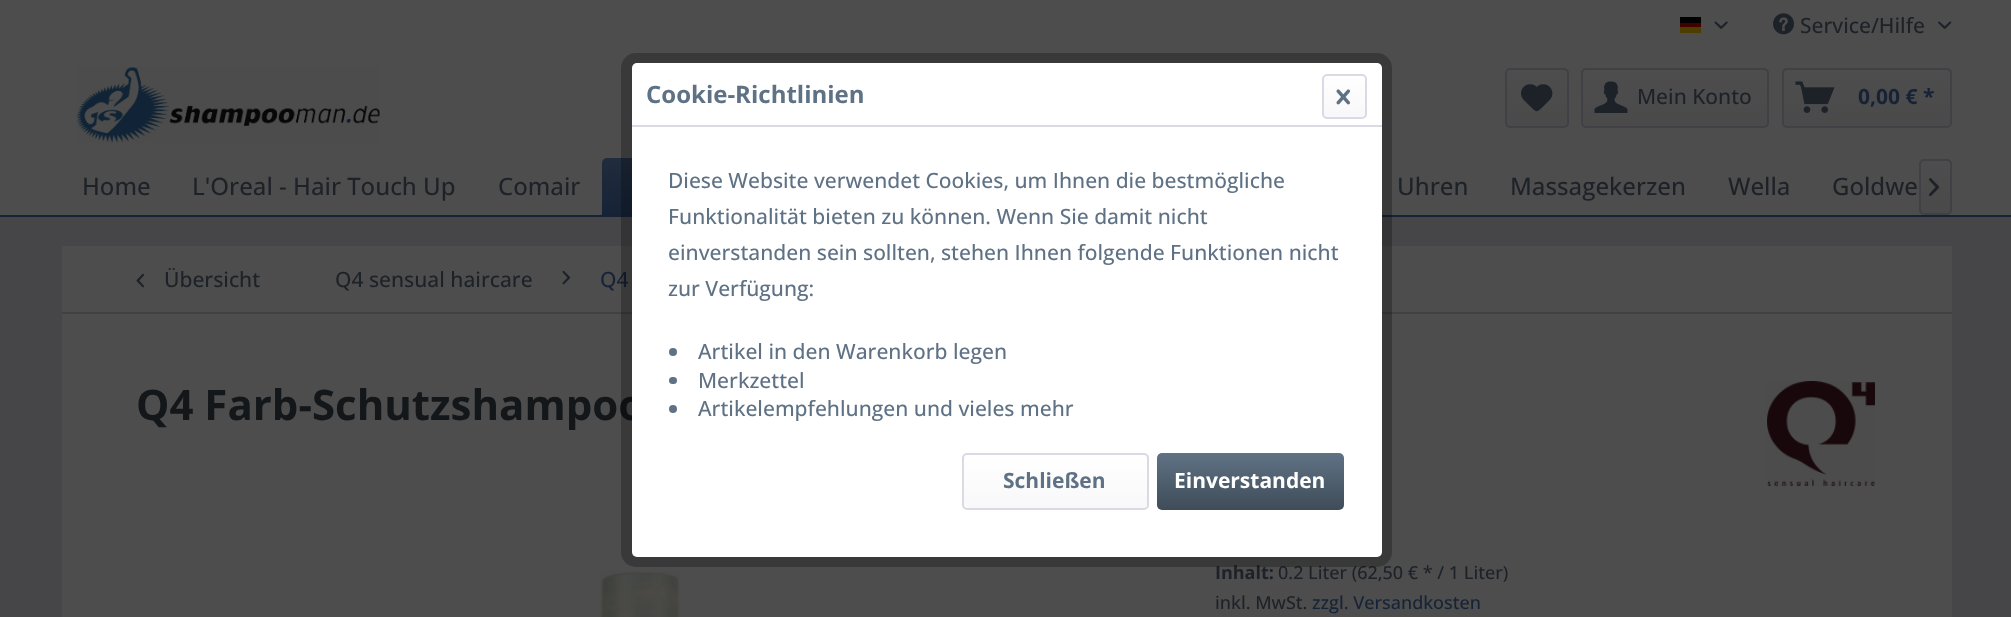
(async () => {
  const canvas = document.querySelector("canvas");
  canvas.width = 2011;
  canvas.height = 617;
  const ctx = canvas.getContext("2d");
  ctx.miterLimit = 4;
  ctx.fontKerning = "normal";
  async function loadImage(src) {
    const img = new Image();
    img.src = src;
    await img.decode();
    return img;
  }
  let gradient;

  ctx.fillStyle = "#464648";
  ctx.fillRect(0, 0, 2011, 617);
  for (const [x, y, w, h, color] of [
    [0, 0, 2011, 215, "#4d4d4d"],
    [1680, 17, 21, 6, "#000000"],
    [1680, 23, 21, 4, "#420000"],
    [1680, 27, 21, 6, "#4d3e00"],
  ]) {
    ctx.fillStyle = color;
    ctx.fillRect(x, y, w, h);
  }
  ctx.drawImage(await loadImage("img/1.png"), 1714, 21, 14, 8);
  ctx.drawImage(await loadImage("img/2.png"), 1773, 13, 21, 22);
  ctx.drawImage(await loadImage("img/3.png"), 1938, 21, 14, 8);
  ctx.drawImage(await loadImage("img/4.png"), 76, 67, 304, 76);
  gradient = ctx.createLinearGradient(1537, 69, 1537, 126);
  gradient.addColorStop(0, "#4d4d4d");
  gradient.addColorStop(1, "#4a4a4b");
  ctx.fillStyle = gradient;
  ctx.beginPath();
  ctx.roundRect(1506, 69, 62, 57, 3);
  ctx.fill();
  ctx.beginPath();
  ctx.roundRect(1506, 69, 62, 58, 4);
  ctx.strokeStyle = "#414145";
  ctx.lineWidth = 2;
  ctx.stroke();
  ctx.drawImage(await loadImage("img/5.png"), 1521, 84, 32, 28);
  gradient = ctx.createLinearGradient(1675, 69, 1675, 126);
  gradient.addColorStop(0, "#4d4d4d");
  gradient.addColorStop(1, "#4a4a4b");
  ctx.fillStyle = gradient;
  ctx.beginPath();
  ctx.roundRect(1583, 69, 184, 57, 3);
  ctx.fill();
  ctx.beginPath();
  ctx.roundRect(1582, 69, 186, 58, 4);
  ctx.stroke();
  ctx.drawImage(await loadImage("img/6.png"), 1594, 81, 34, 32);
  gradient = ctx.createLinearGradient(1867, 69, 1867, 126);
  gradient.addColorStop(0, "#4d4d4d");
  gradient.addColorStop(1, "#4a4a4b");
  ctx.fillStyle = gradient;
  ctx.beginPath();
  ctx.roundRect(1784, 69, 166, 57, 3);
  ctx.fill();
  ctx.beginPath();
  ctx.roundRect(1783, 69, 168, 58, 4);
  ctx.stroke();
  ctx.drawImage(await loadImage("img/7.png"), 1795, 81, 40, 32);
  ctx.fillStyle = "#162336";
  ctx.fillRect(0, 215, 2011, 2);
  gradient = ctx.createLinearGradient(741, 157, 741, 215);
  gradient.addColorStop(0, "#212c3d");
  gradient.addColorStop(1, "#162336");
  ctx.fillStyle = gradient;
  ctx.beginPath();
  ctx.roundRect(602, 158, 279, 57, [5, 5, 0, 0]);
  ctx.fill();
  gradient = ctx.createLinearGradient(1935, 161, 1935, 213);
  gradient.addColorStop(0, "#4d4d4d");
  gradient.addColorStop(1, "#4a4a4b");
  ctx.fillStyle = gradient;
  ctx.beginPath();
  ctx.roundRect(1920, 161, 30, 52, 3);
  ctx.fill();
  ctx.beginPath();
  ctx.roundRect(1920, 160, 31, 54, 4);
  ctx.stroke();
  ctx.drawImage(await loadImage("img/8.png"), 1929, 178, 11, 19);
  ctx.fillStyle = "#4d4d4d";
  ctx.fillRect(62, 246, 1890, 371);
  ctx.fillStyle = "#414145";
  ctx.fillRect(62, 312, 1890, 2);
  ctx.drawImage(await loadImage("img/9.png"), 136, 273, 9, 15);
  ctx.drawImage(await loadImage("img/10.png"), 562, 270, 9, 15);
  ctx.drawImage(await loadImage("img/11.png"), 1767, 381, 108, 105);
  ctx.drawImage(await loadImage("img/12.png"), 600, 571, 80, 46);
  ctx.font = "500 21px Open Sans";
  ctx.fillStyle = "#1d2228";
  ctx.fillText("Service/Hilfe", 1800, 33);
  ctx.fillText("Mein Konto", 1637, 104);
  ctx.font = "bold 21px Open Sans";
  ctx.fillStyle = "#162336";
  ctx.fillText("0,00 € *", 1858, 104);
  ctx.font = "500 24px Open Sans";
  ctx.fillStyle = "#1d2228";
  for (const [text, x, y] of [
    ["Home", 82, 195],
    ["L'Oreal - Hair Touch Up", 192, 195],
    ["Comair", 498, 195],
    ["Uhren", 1397, 195],
    ["Massagekerzen", 1510, 195],
    ["Wella", 1728, 195],
    ["Goldwe", 1832, 195],
  ]) {
    ctx.fillText(text, x, y);
  }
  ctx.font = "500 21px Open Sans";
  ctx.fillText("Übersicht", 164, 287);
  ctx.fillText("Q4 sensual haircare", 335, 287);
  ctx.fillStyle = "#162336";
  ctx.fillText("Q4", 600, 287);
  ctx.font = "bold 42px Open Sans";
  ctx.fillStyle = "#13171a";
  ctx.fillText("Q4 Farb-Schutzshampoo", 136, 420);
  ctx.font = "bold 18px Open Sans";
  ctx.fillStyle = "#1d2228";
  ctx.fillText("Inhalt:", 1215, 579);
  ctx.font = "500 18px Open Sans";
  ctx.fillText("0.2 Liter (62,50 € * / 1 Liter)", 1278, 579);
  ctx.fillText("inkl. MwSt.", 1215, 609);
  ctx.fillStyle = "#162336";
  ctx.fillText("zzgl. Versandkosten", 1312, 609);
  ctx.beginPath();
  ctx.roundRect(626.5, 58.5, 760, 503, 9.5);
  ctx.strokeStyle = "rgba(0, 0, 0, 0.25)";
  ctx.lineWidth = 11;
  ctx.stroke();
  ctx.fillStyle = "#ffffff";
  ctx.beginPath();
  ctx.roundRect(632, 63, 750, 494, 5);
  ctx.fill();
  ctx.fillStyle = "#dadae5";
  ctx.fillRect(632, 125, 750, 2);
  ctx.font = "bold 24px Open Sans";
  ctx.fillStyle = "#5f7285";
  ctx.fillText("Cookie-Richtlinien", 646, 103);
  gradient = ctx.createLinearGradient(1344, 75, 1344, 117);
  gradient.addColorStop(0, "#ffffff");
  gradient.addColorStop(1, "#f8f8fa");
  ctx.fillStyle = gradient;
  ctx.beginPath();
  ctx.roundRect(1323, 75, 42, 42, 3);
  ctx.fill();
  ctx.beginPath();
  ctx.roundRect(1323, 75, 43, 43, 4);
  ctx.strokeStyle = "#dadae5";
  ctx.lineWidth = 2;
  ctx.stroke();
  ctx.drawImage(await loadImage("img/13.png"), 1336, 89, 14, 16);
  ctx.font = "500 21px Open Sans";
  ctx.fillStyle = "#5f7285";
  for (const [text, x, y] of [
    ["Diese Website verwendet Cookies, um Ihnen die bestmögliche", 668, 188],
    ["Funktionalität bieten zu können. Wenn Sie damit nicht", 668, 224],
    ["einverstanden sein sollten, stehen Ihnen folgende Funktionen nicht", 668, 260],
    ["zur Verfügung:", 668, 296],
  ]) {
    ctx.fillText(text, x, y);
  }
  ctx.beginPath();
  ctx.arc(673, 352, 4, 0, Math.PI * 2);
  ctx.fill();
  ctx.fillText("Artikel in den Warenkorb legen", 698, 359);
  ctx.beginPath();
  ctx.roundRect(669, 377, 8, 7, 3.5);
  ctx.fill();
  ctx.fillText("Merkzettel", 698, 388);
  ctx.beginPath();
  ctx.arc(673, 409, 4, 0, Math.PI * 2);
  ctx.fill();
  ctx.fillText("Artikelempfehlungen und vieles mehr", 698, 416);
  gradient = ctx.createLinearGradient(1055, 455, 1055, 509);
  gradient.addColorStop(0, "#ffffff");
  gradient.addColorStop(1, "#f8f8fa");
  ctx.fillStyle = gradient;
  ctx.beginPath();
  ctx.roundRect(963, 455, 185, 54, 3);
  ctx.fill();
  ctx.beginPath();
  ctx.roundRect(963, 454, 185, 55, 4);
  ctx.stroke();
  ctx.font = "bold 21px Open Sans";
  ctx.fillStyle = "#5f7285";
  ctx.fillText("Schließen", 1003, 488);
  gradient = ctx.createLinearGradient(1250, 453, 1250, 510);
  gradient.addColorStop(0, "#5f7285");
  gradient.addColorStop(1, "#3f4c58");
  ctx.fillStyle = gradient;
  ctx.beginPath();
  ctx.roundRect(1157, 453, 187, 57, 5);
  ctx.fill();
  ctx.fillStyle = "#ffffff";
  ctx.fillText("Einverstanden", 1174, 488);
})();
